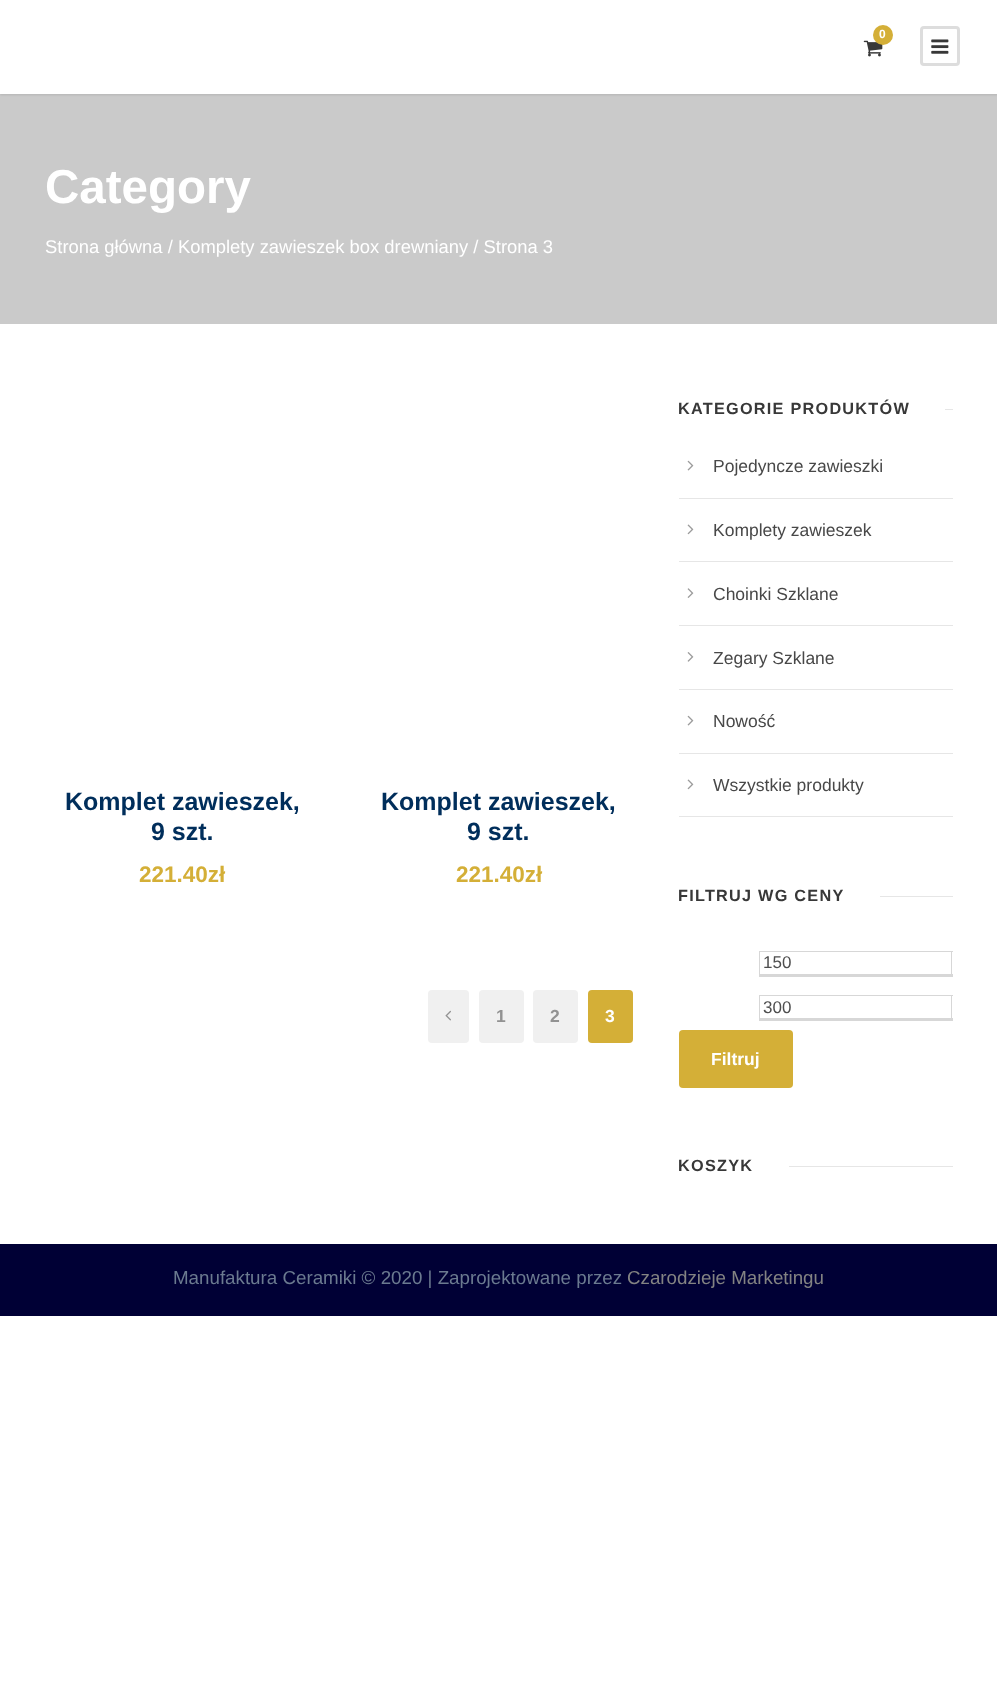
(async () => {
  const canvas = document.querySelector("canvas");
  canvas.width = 997;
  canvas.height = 1700;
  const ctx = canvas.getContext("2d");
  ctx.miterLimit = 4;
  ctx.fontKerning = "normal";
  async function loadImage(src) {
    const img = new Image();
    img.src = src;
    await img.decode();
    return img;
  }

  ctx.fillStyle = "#ffffff";
  ctx.fillRect(0, 0, 997, 1700);
  ctx.fillStyle = "#cacaca";
  ctx.fillRect(0, 94, 997, 230);
  ctx.fillStyle = "rgba(0, 0, 0, 0.1)";
  ctx.filter = "blur(1px)";
  ctx.beginPath();
  ctx.rect(0, 1, 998, 94);
  ctx.fill();
  ctx.filter = "none";
  ctx.fillStyle = "#ffffff";
  ctx.fillRect(0, 0, 997, 94);
  ctx.drawImage(await loadImage("img/1.png"), 863, 40, 20, 17);
  ctx.fillStyle = "#d4af37";
  ctx.beginPath();
  ctx.arc(883, 35, 10, 0, Math.PI * 2);
  ctx.fill();
  ctx.beginPath();
  ctx.roundRect(921.5, 27.5, 37, 37, 2.5);
  ctx.strokeStyle = "#dddddd";
  ctx.lineWidth = 3;
  ctx.stroke();
  ctx.drawImage(await loadImage("img/2.png"), 931, 39, 18, 15);
  ctx.fillStyle = "#f0f0f0";
  ctx.beginPath();
  ctx.roundRect(428, 990, 41, 53, 4);
  ctx.fill();
  ctx.drawImage(await loadImage("img/3.png"), 445, 1010, 6, 11);
  ctx.beginPath();
  ctx.roundRect(479, 990, 45, 53, 4);
  ctx.fill();
  ctx.beginPath();
  ctx.roundRect(533, 990, 45, 53, 4);
  ctx.fill();
  ctx.fillStyle = "#d4af37";
  ctx.beginPath();
  ctx.roundRect(588, 990, 45, 53, 4);
  ctx.fill();
  ctx.fillStyle = "#e6e6e6";
  ctx.fillRect(945, 409, 8, 1);
  ctx.fillRect(679, 498, 274, 1);
  ctx.drawImage(await loadImage("img/4.png"), 687, 460, 7, 11);
  ctx.fillRect(679, 561, 274, 1);
  ctx.drawImage(await loadImage("img/5.png"), 687, 524, 7, 11);
  ctx.fillRect(679, 625, 274, 1);
  ctx.drawImage(await loadImage("img/6.png"), 687, 588, 7, 10);
  ctx.fillRect(679, 689, 274, 1);
  ctx.drawImage(await loadImage("img/7.png"), 687, 652, 7, 10);
  ctx.fillRect(679, 753, 274, 1);
  ctx.drawImage(await loadImage("img/4.png"), 687, 715, 7, 11);
  ctx.fillRect(679, 816, 274, 1);
  ctx.drawImage(await loadImage("img/5.png"), 687, 779, 7, 11);
  for (const [x, y, w, h, color] of [
    [880, 896, 73, 1, "#e6e6e6"],
    [759, 951, 194, 1, "#d7d7d7"],
    [951, 951, 1, 25, "#d7d7d7"],
    [759, 974, 194, 3, "#d7d7d7"],
    [759, 951, 1, 25, "#d7d7d7"],
    [759, 995, 194, 1, "#d7d7d7"],
    [951, 995, 1, 25, "#d7d7d7"],
    [759, 1018, 194, 3, "#d7d7d7"],
    [759, 995, 1, 25, "#d7d7d7"],
  ]) {
    ctx.fillStyle = color;
    ctx.fillRect(x, y, w, h);
  }
  ctx.fillStyle = "#d4af37";
  ctx.beginPath();
  ctx.roundRect(679, 1030, 114, 58, 4);
  ctx.fill();
  ctx.fillStyle = "#e6e6e6";
  ctx.fillRect(789, 1166, 164, 1);
  ctx.fillStyle = "#000035";
  ctx.fillRect(0, 1244, 997, 72);
  ctx.font = "bold 12px Liberation Sans";
  ctx.fillStyle = "#ffffff";
  ctx.fillText("0", 879, 38);
  ctx.font = "bold 47.5px Liberation Sans";
  ctx.fillText("Category", 45, 203);
  ctx.font = "18.4px Liberation Sans";
  ctx.fillText("Strona główna / Komplety zawieszek box drewniany / Strona 3", 45, 253);
  ctx.font = "bold 25px Liberation Sans";
  ctx.fillStyle = "#002e5b";
  ctx.fillText("Komplet zawieszek,", 65, 810);
  ctx.fillText("9 szt.", 151, 840);
  ctx.font = "bold 22.5px Liberation Sans";
  ctx.fillStyle = "#d4af37";
  ctx.fillText("221.40zł", 139, 882);
  ctx.font = "bold 25px Liberation Sans";
  ctx.fillStyle = "#002e5b";
  ctx.fillText("Komplet zawieszek,", 381, 810);
  ctx.fillText("9 szt.", 467, 840);
  ctx.font = "bold 22.5px Liberation Sans";
  ctx.fillStyle = "#d4af37";
  ctx.fillText("221.40zł", 456, 882);
  ctx.font = "bold 17.5px Liberation Sans";
  ctx.fillStyle = "#929292";
  ctx.fillText("1", 496, 1022);
  ctx.fillText("2", 550, 1022);
  ctx.fillStyle = "#ffffff";
  ctx.fillText("3", 605, 1022);
  ctx.letterSpacing = "1.25px";
  ctx.font = "bold 16.25px Liberation Sans";
  ctx.fillStyle = "#383838";
  ctx.fillText("KATEGORIE PRODUKTÓW", 678, 414);
  ctx.letterSpacing = "0px";
  ctx.font = "17.5px Liberation Sans";
  ctx.fillStyle = "#484848";
  for (const [text, x, y] of [
    ["Pojedyncze zawieszki", 713, 472],
    ["Komplety zawieszek", 713, 536],
    ["Choinki Szklane", 713, 600],
    ["Zegary Szklane", 713, 664],
    ["Nowość", 713, 727],
    ["Wszystkie produkty", 713, 791],
  ]) {
    ctx.fillText(text, x, y);
  }
  ctx.letterSpacing = "1.25px";
  ctx.font = "bold 16.25px Liberation Sans";
  ctx.fillStyle = "#383838";
  ctx.fillText("FILTRUJ WG CENY", 678, 901);
  ctx.letterSpacing = "0px";
  ctx.font = "17px Liberation Sans";
  ctx.fillStyle = "#4e4e4e";
  ctx.fillText("150", 763, 968);
  ctx.fillText("300", 763, 1013);
  ctx.font = "bold 17.5px Liberation Sans";
  ctx.fillStyle = "#ffffff";
  ctx.fillText("Filtruj", 711, 1065);
  ctx.letterSpacing = "1.25px";
  ctx.font = "bold 16.25px Liberation Sans";
  ctx.fillStyle = "#383838";
  ctx.fillText("KOSZYK", 678, 1171);
  ctx.letterSpacing = "0px";
  ctx.font = "18.75px Liberation Sans";
  ctx.fillStyle = "#6b7a90";
  ctx.fillText("Manufaktura Ceramiki © 2020 | Zaprojektowane przez", 173, 1284);
  ctx.fillStyle = "#838383";
  ctx.fillText("Czarodzieje Marketingu", 627, 1284);
})();
